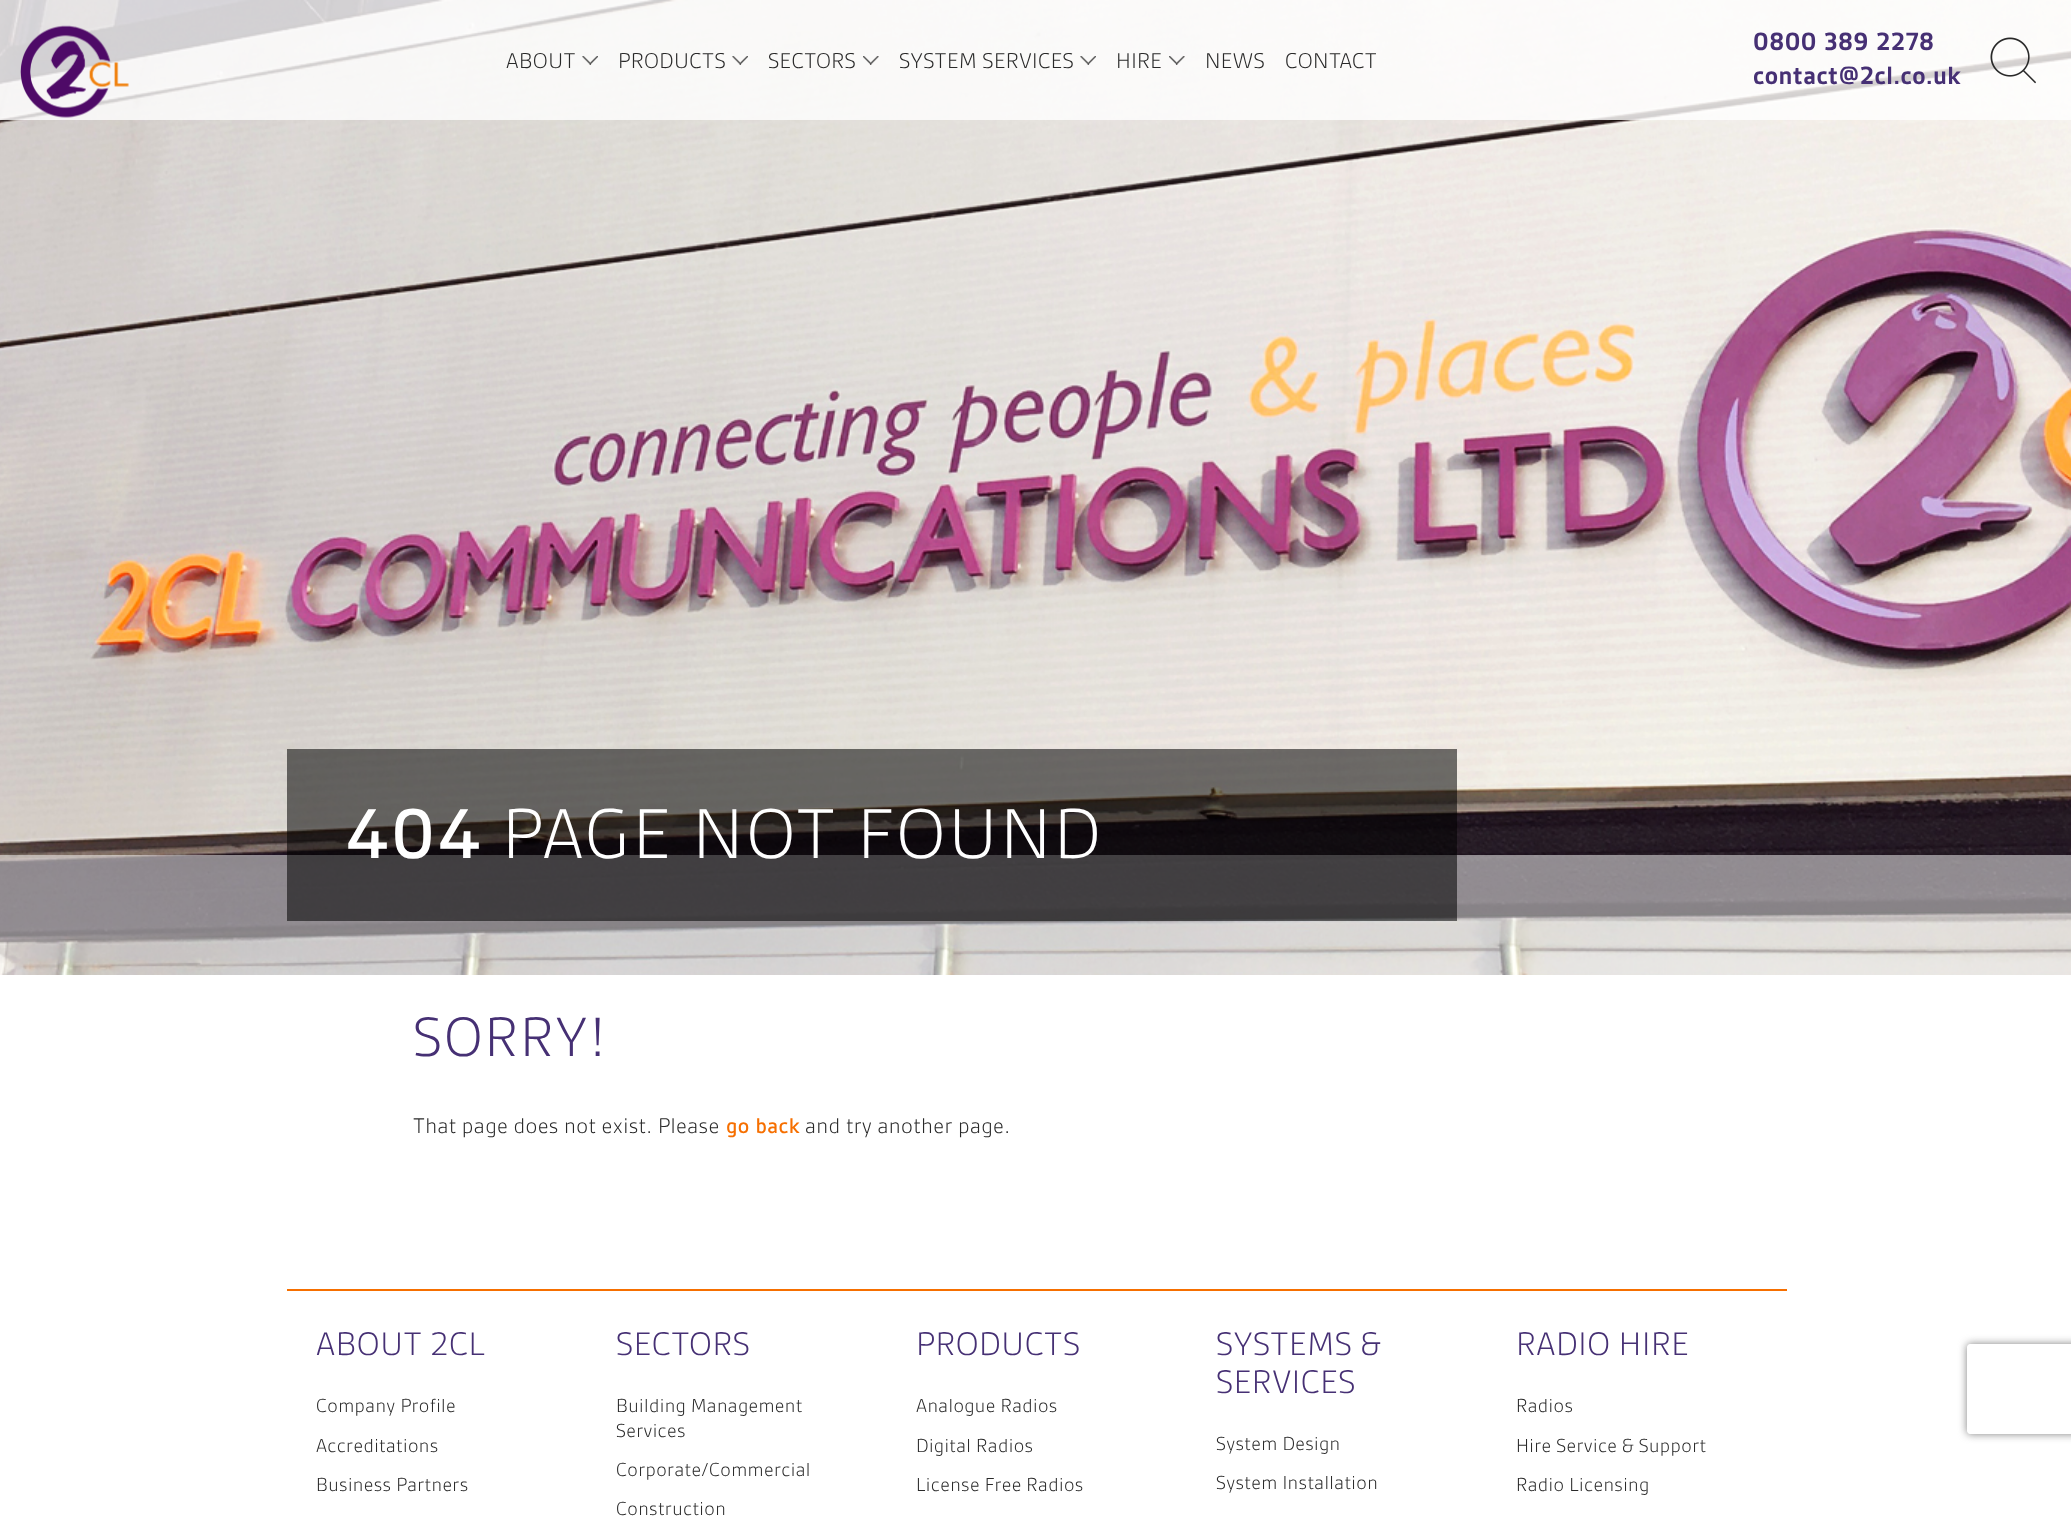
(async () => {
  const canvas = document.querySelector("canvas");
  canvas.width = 2071;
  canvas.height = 1524;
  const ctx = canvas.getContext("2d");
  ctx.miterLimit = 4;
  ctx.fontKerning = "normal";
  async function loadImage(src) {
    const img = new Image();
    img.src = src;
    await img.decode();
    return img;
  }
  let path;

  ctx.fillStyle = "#ffffff";
  ctx.fillRect(0, 0, 2071, 1524);
  ctx.drawImage(await loadImage("img/8.png"), 0, 0, 2071, 975);
  ctx.fillStyle = "rgba(255, 255, 255, 0.8)";
  ctx.fillRect(0, 0, 2071, 120);
  ctx.drawImage(await loadImage("img/1.png"), 20, 25, 109, 93);
  ctx.drawImage(await loadImage("img/2.png"), 582, 56, 16, 9);
  ctx.drawImage(await loadImage("img/3.png"), 732, 56, 16, 9);
  ctx.drawImage(await loadImage("img/4.png"), 863, 56, 16, 9);
  ctx.drawImage(await loadImage("img/5.png"), 1080, 56, 16, 9);
  ctx.drawImage(await loadImage("img/6.png"), 1169, 56, 16, 9);
  ctx.drawImage(await loadImage("img/7.png"), 1990, 37, 46, 47);
  for (const [x, y, w, h, color] of [
    [0, 855, 2071, 120, "rgba(255, 255, 255, 0.5)"],
    [287, 749, 1170, 172, "rgba(0, 0, 0, 0.55)"],
    [287, 1289, 1500, 2, "#f66f00"],
  ]) {
    ctx.fillStyle = color;
    ctx.fillRect(x, y, w, h);
  }
  ctx.save();
  path = new Path2D("M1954 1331H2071V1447H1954ZM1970 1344H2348C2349.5 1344 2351 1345.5 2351 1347V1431C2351 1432.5 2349.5 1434 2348 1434H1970C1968.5 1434 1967 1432.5 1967 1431V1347C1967 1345.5 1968.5 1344 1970 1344Z");
  ctx.clip(path, "evenodd");
  ctx.fillStyle = "#808080";
  ctx.filter = "blur(4px)";
  ctx.beginPath();
  ctx.roundRect(1967, 1344, 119, 90, 3);
  ctx.fill();
  ctx.filter = "none";
  ctx.restore();
  ctx.letterSpacing = "0.4px";
  ctx.font = "300 20.5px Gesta";
  ctx.fillStyle = "#292929";
  for (const [text, x, y] of [
    ["ABOUT", 506, 68],
    ["PRODUCTS", 618, 68],
    ["SECTORS", 768, 68],
    ["SYSTEM SERVICES", 899, 68],
    ["HIRE", 1116, 68],
    ["NEWS", 1205, 68],
    ["CONTACT", 1285, 68],
  ]) {
    ctx.fillText(text, x, y);
  }
  ctx.letterSpacing = "0.5px";
  ctx.font = "bold 24px Gesta";
  ctx.fillStyle = "#463074";
  ctx.fillText("0800 389 2278", 1753, 50);
  ctx.fillText("contact@2cl.co.uk", 1753, 84);
  ctx.letterSpacing = "2.75px";
  ctx.font = "500 67.5px Gesta";
  ctx.fillStyle = "#ffffff";
  ctx.fillText("404", 346, 858);
  ctx.font = "300 67.5px Gesta";
  ctx.fillText("PAGE NOT FOUND", 502, 858);
  ctx.letterSpacing = "2px";
  ctx.font = "300 53px Gesta";
  ctx.fillStyle = "#463074";
  ctx.fillText("SORRY!", 413, 1056);
  ctx.letterSpacing = "0.4px";
  ctx.font = "300 20.25px Gesta";
  ctx.fillStyle = "#292929";
  ctx.fillText("That page does not exist. Please", 413, 1133);
  ctx.font = "500 20.25px Gesta";
  ctx.fillStyle = "#f66f00";
  ctx.fillText("go back", 726, 1133);
  ctx.font = "300 20.25px Gesta";
  ctx.fillStyle = "#292929";
  ctx.fillText("and try another page.", 805, 1133);
  ctx.letterSpacing = "0.6px";
  ctx.font = "300 31.25px Gesta";
  ctx.fillStyle = "#463074";
  ctx.fillText("ABOUT 2CL", 316, 1355);
  ctx.letterSpacing = "0.4px";
  ctx.font = "300 18px Gesta";
  ctx.fillStyle = "#292929";
  for (const [text, x, y] of [
    ["Company Profile", 316, 1412],
    ["Accreditations", 316, 1452],
    ["Business Partners", 316, 1491],
  ]) {
    ctx.fillText(text, x, y);
  }
  ctx.letterSpacing = "0.6px";
  ctx.font = "300 31.25px Gesta";
  ctx.fillStyle = "#463074";
  ctx.fillText("SECTORS", 616, 1355);
  ctx.letterSpacing = "0.4px";
  ctx.font = "300 18px Gesta";
  ctx.fillStyle = "#292929";
  for (const [text, x, y] of [
    ["Building Management", 616, 1412],
    ["Services", 616, 1437],
    ["Corporate/Commercial", 616, 1476],
    ["Construction", 616, 1515],
  ]) {
    ctx.fillText(text, x, y);
  }
  ctx.letterSpacing = "0.6px";
  ctx.font = "300 31.25px Gesta";
  ctx.fillStyle = "#463074";
  ctx.fillText("PRODUCTS", 916, 1355);
  ctx.letterSpacing = "0.4px";
  ctx.font = "300 18px Gesta";
  ctx.fillStyle = "#292929";
  for (const [text, x, y] of [
    ["Analogue Radios", 916, 1412],
    ["Digital Radios", 916, 1452],
    ["License Free Radios", 916, 1491],
  ]) {
    ctx.fillText(text, x, y);
  }
  ctx.letterSpacing = "0.6px";
  ctx.font = "300 31.25px Gesta";
  ctx.fillStyle = "#463074";
  ctx.fillText("SYSTEMS &", 1216, 1355);
  ctx.fillText("SERVICES", 1216, 1393);
  ctx.letterSpacing = "0.4px";
  ctx.font = "300 18px Gesta";
  ctx.fillStyle = "#292929";
  ctx.fillText("System Design", 1216, 1450);
  ctx.fillText("System Installation", 1216, 1489);
  ctx.letterSpacing = "0.6px";
  ctx.font = "300 31.25px Gesta";
  ctx.fillStyle = "#463074";
  ctx.fillText("RADIO HIRE", 1516, 1355);
  ctx.letterSpacing = "0.4px";
  ctx.font = "300 18px Gesta";
  ctx.fillStyle = "#292929";
  for (const [text, x, y] of [
    ["Radios", 1516, 1412],
    ["Hire Service & Support", 1516, 1452],
    ["Radio Licensing", 1516, 1491],
  ]) {
    ctx.fillText(text, x, y);
  }
})();
